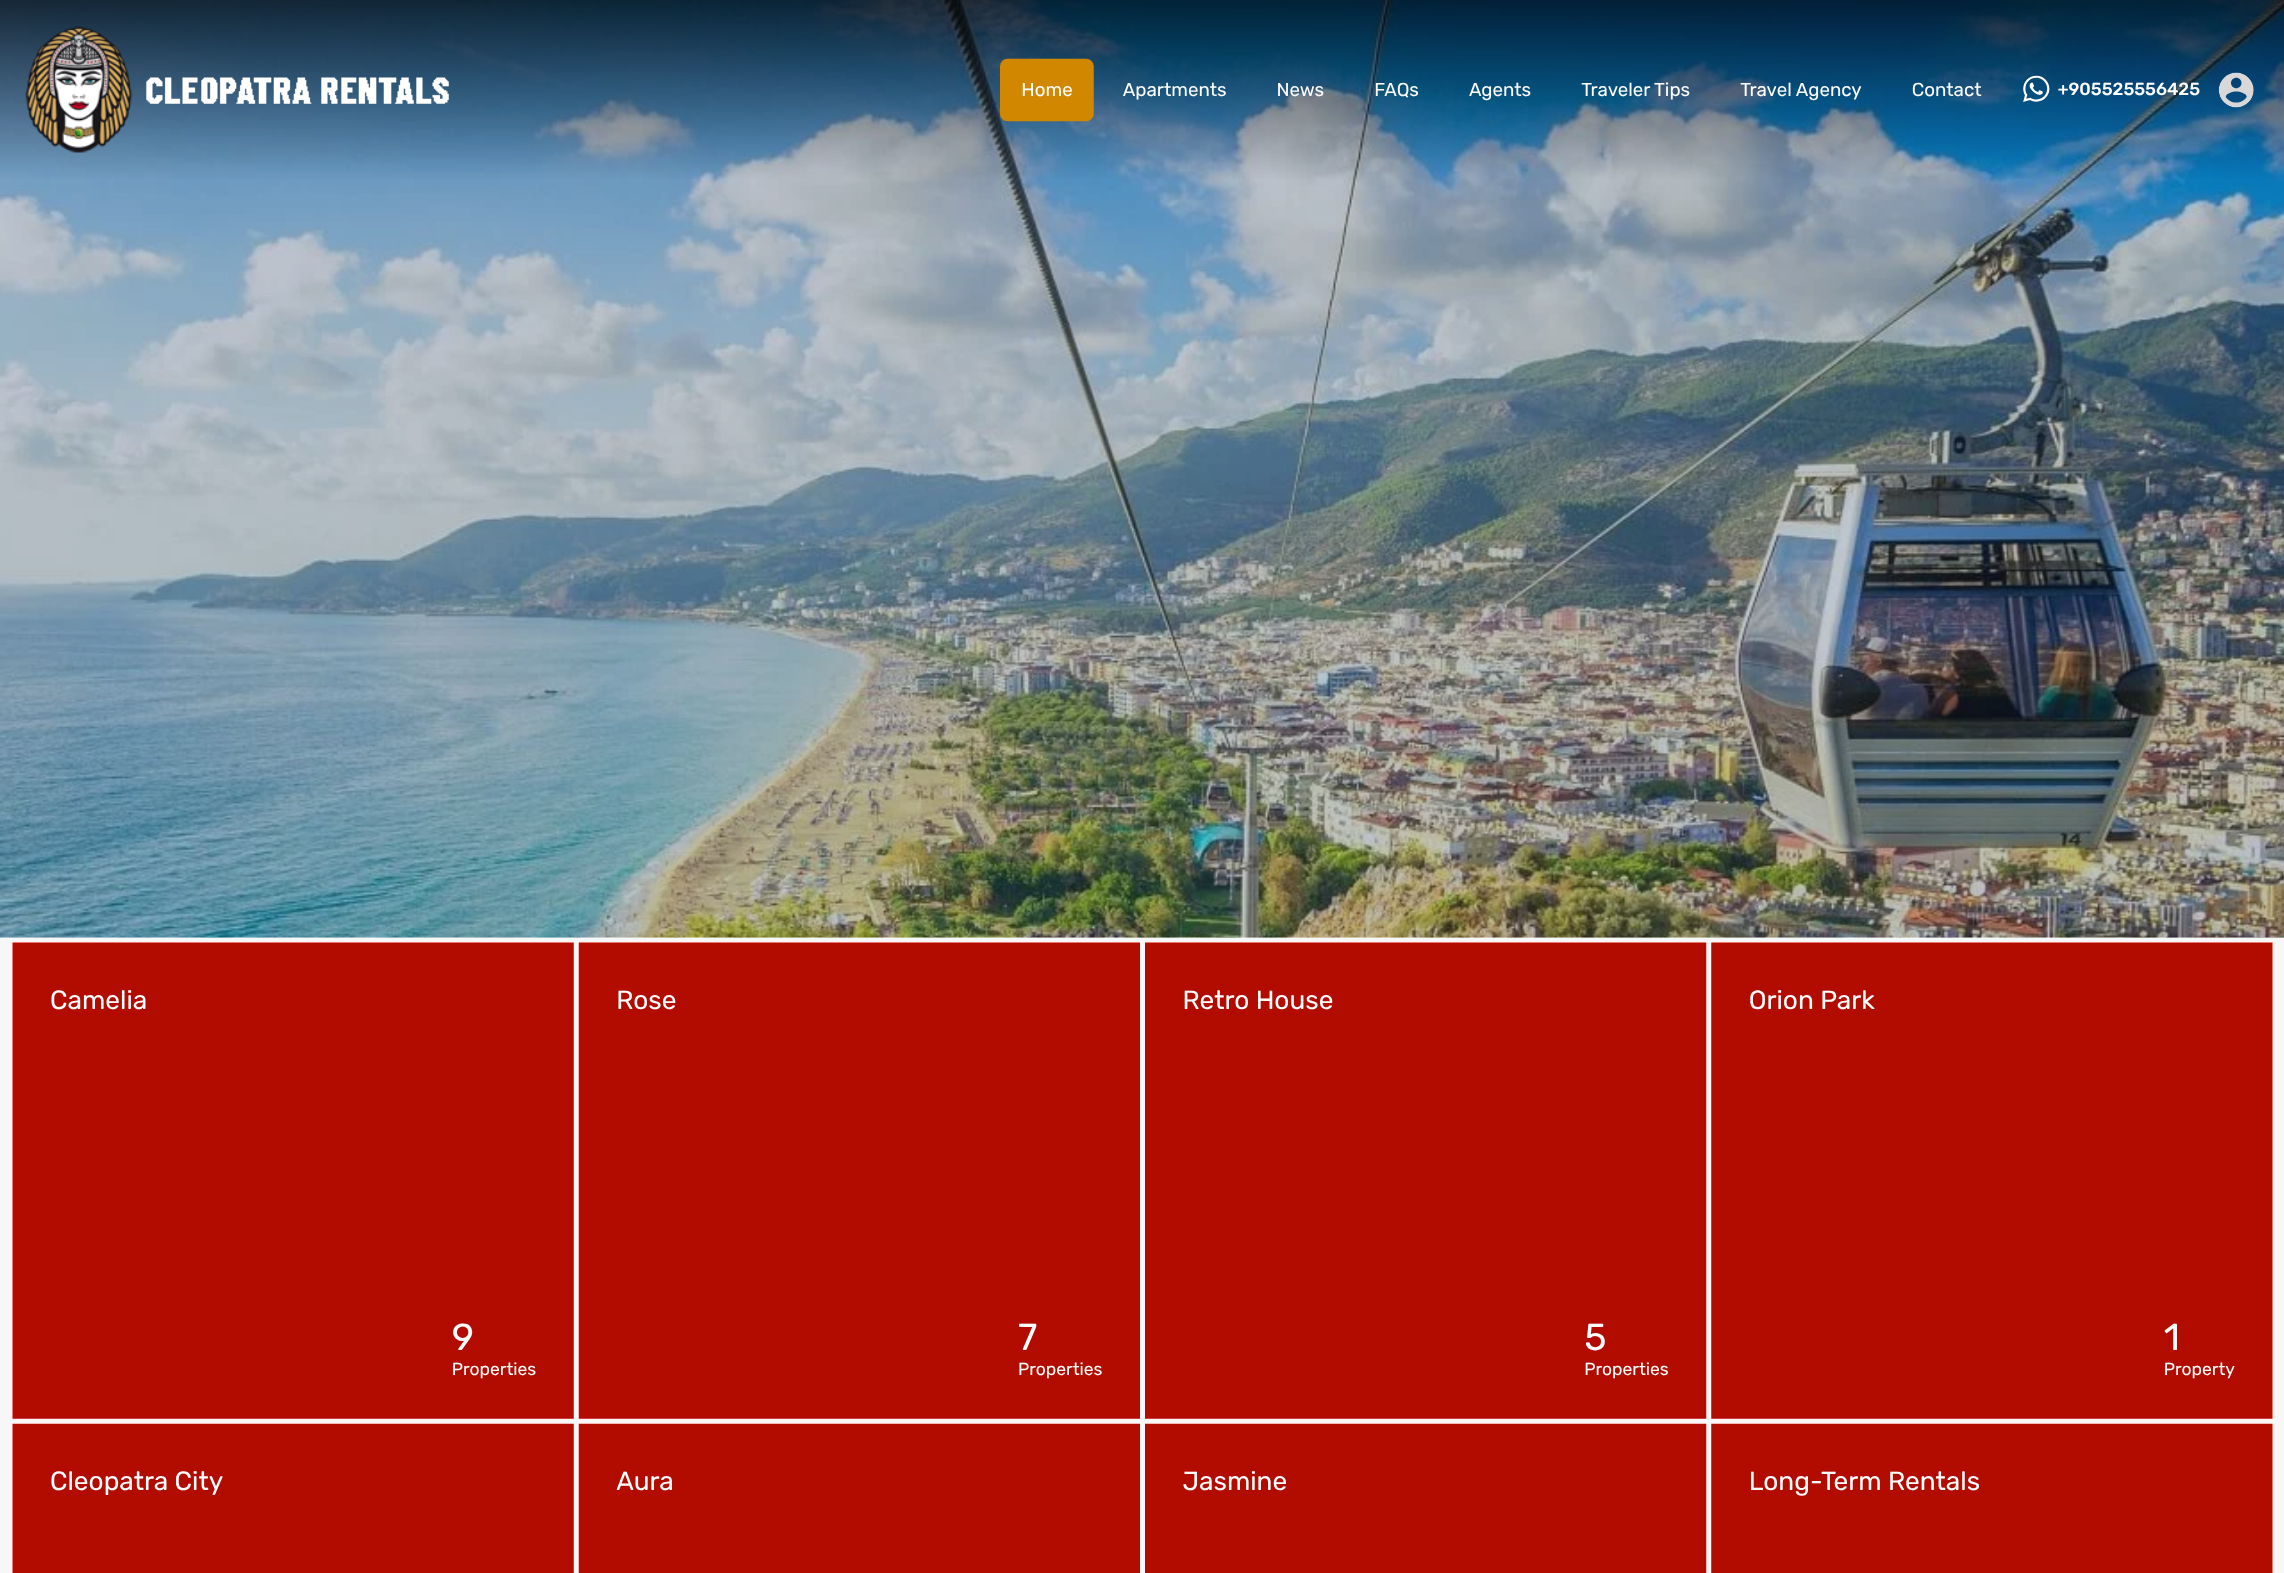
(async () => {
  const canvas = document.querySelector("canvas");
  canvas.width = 2284;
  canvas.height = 1573;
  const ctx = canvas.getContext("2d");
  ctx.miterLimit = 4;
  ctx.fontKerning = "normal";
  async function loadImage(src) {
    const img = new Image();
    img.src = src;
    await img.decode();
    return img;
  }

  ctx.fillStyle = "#ffffff";
  ctx.fillRect(0, 0, 2284, 1573);
  ctx.drawImage(await loadImage("img/1.png"), 0, 0, 2284, 1573);
})();
